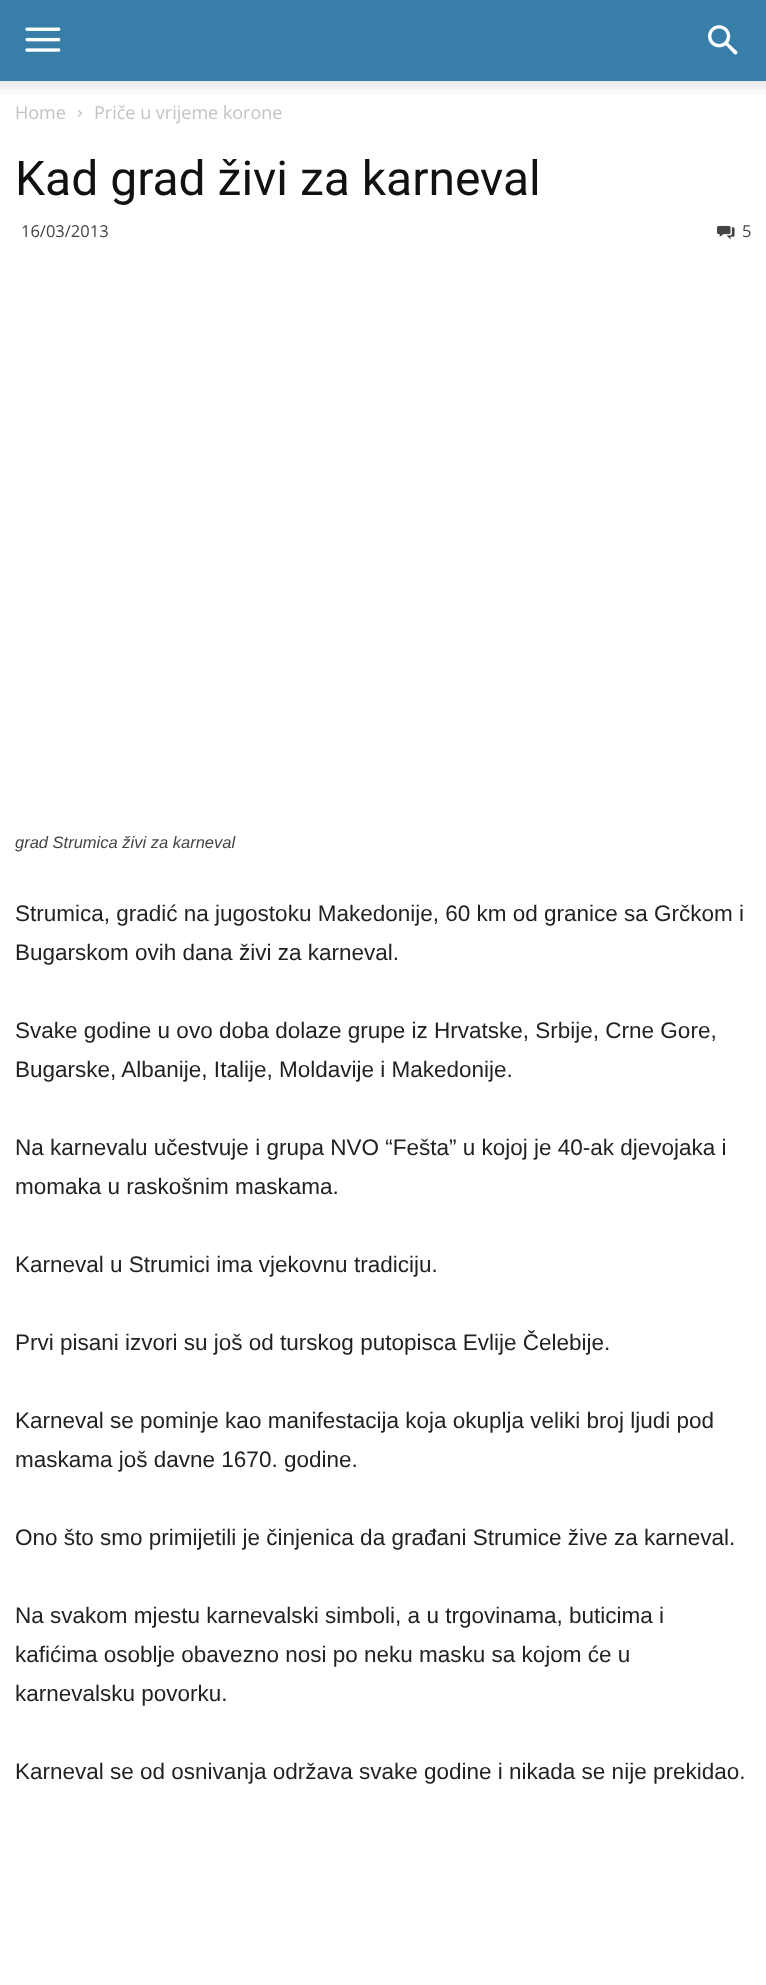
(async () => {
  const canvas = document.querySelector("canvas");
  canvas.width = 766;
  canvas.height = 1985;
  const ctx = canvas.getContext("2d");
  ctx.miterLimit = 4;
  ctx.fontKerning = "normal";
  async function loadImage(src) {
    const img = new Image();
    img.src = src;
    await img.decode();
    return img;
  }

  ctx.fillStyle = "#ffffff";
  ctx.fillRect(0, 0, 766, 1985);
  ctx.fillStyle = "#377fa9";
  ctx.fillRect(0, 0, 766, 81);
  ctx.drawImage(await loadImage("img/1.png"), 25, 27, 36, 25);
  ctx.drawImage(await loadImage("img/2.png"), 708, 25, 30, 30);
  ctx.drawImage(await loadImage("img/3.png"), 0, 81, 766, 13);
  ctx.drawImage(await loadImage("img/4.png"), 78, 110, 4, 7);
  ctx.drawImage(await loadImage("img/5.png"), 717, 225, 18, 15);
  ctx.font = "18px Open Sans";
  ctx.fillStyle = "#c3c3c3";
  ctx.fillText("Home", 15, 119);
  ctx.fillText("Priče u vrijeme korone", 94, 119);
  ctx.font = "48px Roboto";
  ctx.fillStyle = "#111111";
  ctx.fillText("Kad grad živi za karneval", 15, 195);
  ctx.font = "16.5px Open Sans";
  ctx.fillStyle = "#444444";
  ctx.fillText("16/03/2013", 21, 237);
  ctx.fillText("5", 742, 237);
  ctx.font = "italic 16.5px Liberation Sans";
  ctx.fillText("grad Strumica živi za karneval", 15, 848);
  ctx.font = "22.5px Liberation Sans";
  ctx.fillStyle = "#222222";
  for (const [text, x, y] of [
    ["Strumica, gradić na jugostoku Makedonije, 60 km od granice sa Grčkom i", 15, 921],
    ["Bugarskom ovih dana živi za karneval.", 15, 960],
    ["Svake godine u ovo doba dolaze grupe iz Hrvatske, Srbije, Crne Gore,", 15, 1038],
    ["Bugarske, Albanije, Italije, Moldavije i Makedonije.", 15, 1077],
    ["Na karnevalu učestvuje i grupa NVO “Fešta” u kojoj je 40-ak djevojaka i", 15, 1155],
    ["momaka u raskošnim maskama.", 15, 1194],
    ["Karneval u Strumici ima vjekovnu tradiciju.", 15, 1272],
    ["Prvi pisani izvori su još od turskog putopisca Evlije Čelebije.", 15, 1350],
    ["Karneval se pominje kao manifestacija koja okuplja veliki broj ljudi pod", 15, 1428],
    ["maskama još davne 1670. godine.", 15, 1467],
    ["Ono što smo primijetili je činjenica da građani Strumice žive za karneval.", 15, 1545],
    ["Na svakom mjestu karnevalski simboli, a u trgovinama, buticima i", 15, 1623],
    ["kafićima osoblje obavezno nosi po neku masku sa kojom će u", 15, 1662],
    ["karnevalsku povorku.", 15, 1701],
    ["Karneval se od osnivanja održava svake godine i nikada se nije prekidao.", 15, 1779],
  ]) {
    ctx.fillText(text, x, y);
  }
})();
